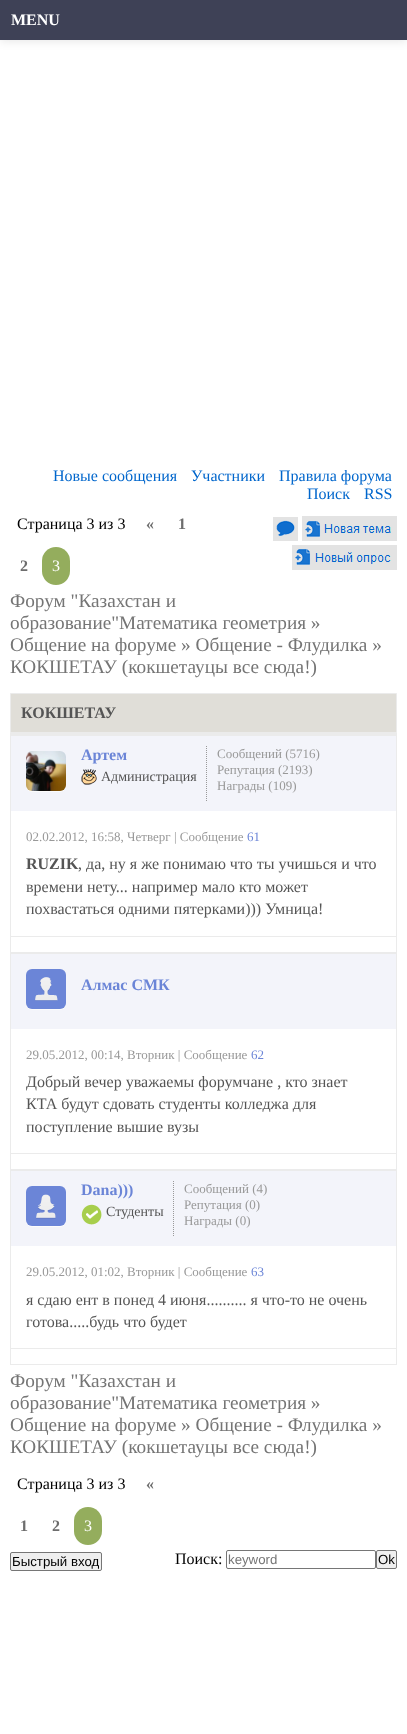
(async () => {
  const canvas = document.querySelector("canvas");
  canvas.width = 407;
  canvas.height = 1734;
  const ctx = canvas.getContext("2d");
  ctx.miterLimit = 4;
  ctx.fontKerning = "normal";
  async function loadImage(src) {
    const img = new Image();
    img.src = src;
    await img.decode();
    return img;
  }
  let path;

  ctx.fillStyle = "#ffffff";
  ctx.fillRect(0, 0, 407, 1734);
  ctx.fillStyle = "rgba(0, 0, 0, 0.1)";
  ctx.filter = "blur(5px)";
  ctx.beginPath();
  ctx.rect(0, 1, 407, 40);
  ctx.fill();
  ctx.filter = "none";
  ctx.fillStyle = "#3e4156";
  ctx.fillRect(0, 0, 407, 40);
  ctx.fillStyle = "#94ad5d";
  ctx.beginPath();
  ctx.roundRect(42, 547, 28, 38, 14);
  ctx.fill();
  ctx.drawImage(await loadImage("img/1.png"), 273, 517, 25, 24);
  ctx.drawImage(await loadImage("img/2.png"), 302, 516, 95, 25);
  ctx.drawImage(await loadImage("img/3.png"), 292, 545, 105, 25);
  ctx.fillStyle = "#e0ded8";
  ctx.beginPath();
  ctx.rect(10.5, 693.5, 386, 39);
  ctx.fill();
  ctx.strokeStyle = "#ebebeb";
  ctx.stroke();
  ctx.fillStyle = "#ebebeb";
  ctx.fillRect(10, 733, 387, 2);
  ctx.strokeRect(10.5, 735.5, 386, 217);
  ctx.fillStyle = "#f3f4fa";
  ctx.fillRect(11, 736, 385, 75);
  ctx.fillStyle = "#fcfcfc";
  path = new Path2D("M26 785C26 792 31 792 37 792H55C61 792 66 792 66 785C66 788 63 791 60 791H32C29 791 26 788 26 785Z");
  ctx.fill(path);
  ctx.drawImage(await loadImage("img/4.png"), 26, 751, 40, 40);
  path = new Path2D("M206.5 746V801");
  ctx.strokeStyle = "#999999";
  ctx.setLineDash([1, 1]);
  ctx.stroke(path);
  ctx.drawImage(await loadImage("img/5.png"), 81, 769, 16, 16);
  ctx.fillStyle = "#ebebeb";
  ctx.fillRect(11, 936, 385, 1);
  ctx.strokeStyle = "#ebebeb";
  ctx.setLineDash([]);
  ctx.strokeRect(10.5, 953.5, 386, 216);
  ctx.fillStyle = "#f3f4fa";
  ctx.fillRect(11, 954, 385, 75);
  ctx.fillStyle = "#fcfcfc";
  path = new Path2D("M26 1003C26 1010 31 1010 37 1010H55C61 1010 66 1010 66 1003C66 1006 63 1009 60 1009H32C29 1009 26 1006 26 1003Z");
  ctx.fill(path);
  ctx.fillStyle = "#6b85d7";
  ctx.beginPath();
  ctx.roundRect(26, 969, 40, 40, 6);
  ctx.fill();
  ctx.drawImage(await loadImage("img/6.png"), 35, 977, 23, 24);
  ctx.fillStyle = "#ebebeb";
  ctx.fillRect(11, 1153, 385, 1);
  ctx.strokeRect(10.5, 1170.5, 386, 194);
  ctx.fillStyle = "#f3f4fa";
  ctx.fillRect(11, 1171, 385, 75);
  ctx.fillStyle = "#fcfcfc";
  path = new Path2D("M26 1220C26 1227 31 1227 37 1227H55C61 1227 66 1227 66 1220C66 1223 63 1226 60 1226H32C29 1226 26 1223 26 1220Z");
  ctx.fill(path);
  ctx.fillStyle = "#6b85d7";
  ctx.beginPath();
  ctx.roundRect(26, 1186, 40, 40, 6);
  ctx.fill();
  ctx.drawImage(await loadImage("img/7.png"), 36, 1194, 20, 25);
  path = new Path2D("M173.5 1181V1236");
  ctx.strokeStyle = "#999999";
  ctx.setLineDash([1, 1]);
  ctx.stroke(path);
  ctx.drawImage(await loadImage("img/8.png"), 81, 1204, 21, 21);
  ctx.fillStyle = "#ebebeb";
  ctx.fillRect(11, 1348, 385, 1);
  ctx.fillStyle = "#94ad5d";
  ctx.beginPath();
  ctx.roundRect(74, 1507, 28, 38, 14);
  ctx.fill();
  ctx.fillStyle = "#efefef";
  ctx.beginPath();
  ctx.roundRect(10.5, 1552.5, 91, 18, 1.5);
  ctx.fill();
  ctx.strokeStyle = "#767676";
  ctx.setLineDash([]);
  ctx.stroke();
  ctx.beginPath();
  ctx.roundRect(226.5, 1550.5, 149, 18, 1.5);
  ctx.stroke();
  ctx.beginPath();
  ctx.roundRect(376.5, 1550.5, 20, 18, 1.5);
  ctx.fill();
  ctx.stroke();
  ctx.font = "bold 16px Liberation Serif";
  ctx.fillStyle = "#ffffff";
  ctx.fillText("MENU", 11, 25);
  ctx.font = "16px Liberation Serif";
  ctx.fillStyle = "#0066cc";
  for (const [text, x, y] of [
    ["Новые сообщения", 53, 481],
    ["Участники", 191, 481],
    ["Правила форума", 279, 481],
    ["Поиск", 307, 499],
    ["RSS", 364, 499],
  ]) {
    ctx.fillText(text, x, y);
  }
  ctx.fillStyle = "#000000";
  ctx.fillText("Страница 3 из 3", 17, 529);
  ctx.font = "bold 16px Liberation Serif";
  ctx.fillStyle = "#6d6d6d";
  for (const [text, x, y] of [
    ["«", 146, 529],
    ["1", 178, 529],
    ["2", 20, 571],
  ]) {
    ctx.fillText(text, x, y);
  }
  ctx.font = "16px Liberation Serif";
  ctx.fillStyle = "#ffffff";
  ctx.fillText("3", 52, 571);
  ctx.font = "19.25px Liberation Serif";
  ctx.fillStyle = "#757575";
  for (const [text, x, y] of [
    ["Форум \"Казахстан и", 10, 607],
    ["образование\"Математика геометрия »", 10, 629],
    ["Общение на форуме » Общение - Флудилка »", 10, 651],
    ["КОКШЕТАУ (кокшетауцы все сюда!)", 10, 673],
  ]) {
    ctx.fillText(text, x, y);
  }
  ctx.font = "bold 16px Liberation Serif";
  ctx.fillStyle = "#555555";
  ctx.fillText("КОКШЕТАУ", 21, 718);
  ctx.fillStyle = "#6b85d7";
  ctx.fillText("Артем", 81, 760);
  ctx.font = "14px Liberation Serif";
  ctx.fillStyle = "#555555";
  ctx.fillText("Администрация", 101, 781);
  ctx.font = "13px Liberation Serif";
  ctx.fillStyle = "#999999";
  for (const [text, x, y] of [
    ["Сообщений (5716)", 217, 758],
    ["Репутация (2193)", 217, 774],
    ["Награды (109)", 217, 790],
    ["02.02.2012, 16:58, Четверг | Сообщение", 26, 841],
  ]) {
    ctx.fillText(text, x, y);
  }
  ctx.fillStyle = "#6b85d7";
  ctx.fillText("61", 247, 841);
  ctx.font = "bold 16px Liberation Serif";
  ctx.fillStyle = "#555555";
  ctx.fillText("RUZIK", 26, 869);
  ctx.font = "16px Liberation Serif";
  for (const [text, x, y] of [
    [", да, ну я же понимаю что ты учишься и что", 78, 869],
    ["времени нету... например мало кто может", 26, 892],
    ["похвастаться одними пятерками))) Умница!", 26, 914],
  ]) {
    ctx.fillText(text, x, y);
  }
  ctx.font = "bold 16px Liberation Serif";
  ctx.fillStyle = "#6b85d7";
  ctx.fillText("Алмас СМК", 81, 990);
  ctx.font = "13px Liberation Serif";
  ctx.fillStyle = "#999999";
  ctx.fillText("29.05.2012, 00:14, Вторник | Сообщение", 26, 1059);
  ctx.fillStyle = "#6b85d7";
  ctx.fillText("62", 251, 1059);
  ctx.font = "16px Liberation Serif";
  ctx.fillStyle = "#555555";
  for (const [text, x, y] of [
    ["Добрый вечер уважаемы форумчане , кто знает", 26, 1087],
    ["КТА будут сдовать студенты колледжа для", 26, 1109],
    ["поступление вышие вузы", 26, 1132],
  ]) {
    ctx.fillText(text, x, y);
  }
  ctx.font = "bold 16px Liberation Serif";
  ctx.fillStyle = "#6b85d7";
  ctx.fillText("Dana)))", 81, 1195);
  ctx.font = "14px Liberation Serif";
  ctx.fillStyle = "#555555";
  ctx.fillText("Студенты", 106, 1216);
  ctx.font = "13px Liberation Serif";
  ctx.fillStyle = "#999999";
  for (const [text, x, y] of [
    ["Сообщений (4)", 184, 1193],
    ["Репутация (0)", 184, 1209],
    ["Награды (0)", 184, 1225],
    ["29.05.2012, 01:02, Вторник | Сообщение", 26, 1276],
  ]) {
    ctx.fillText(text, x, y);
  }
  ctx.fillStyle = "#6b85d7";
  ctx.fillText("63", 251, 1276);
  ctx.font = "16px Liberation Serif";
  ctx.fillStyle = "#555555";
  ctx.fillText("я сдаю ент в понед 4 июня.......... я что-то не очень", 26, 1305);
  ctx.fillText("готова.....будь что будет", 26, 1327);
  ctx.font = "19.25px Liberation Serif";
  ctx.fillStyle = "#757575";
  for (const [text, x, y] of [
    ["Форум \"Казахстан и", 10, 1387],
    ["образование\"Математика геометрия »", 10, 1409],
    ["Общение на форуме » Общение - Флудилка »", 10, 1431],
    ["КОКШЕТАУ (кокшетауцы все сюда!)", 10, 1453],
  ]) {
    ctx.fillText(text, x, y);
  }
  ctx.font = "16px Liberation Serif";
  ctx.fillStyle = "#000000";
  ctx.fillText("Страница 3 из 3", 17, 1489);
  ctx.font = "bold 16px Liberation Serif";
  ctx.fillStyle = "#6d6d6d";
  for (const [text, x, y] of [
    ["«", 146, 1489],
    ["1", 20, 1531],
    ["2", 52, 1531],
  ]) {
    ctx.fillText(text, x, y);
  }
  ctx.font = "16px Liberation Serif";
  ctx.fillStyle = "#ffffff";
  ctx.fillText("3", 84, 1531);
  ctx.font = "13.25px Liberation Sans";
  ctx.fillStyle = "#000000";
  ctx.fillText("Быстрый вход", 12, 1566);
  ctx.font = "16px Liberation Serif";
  ctx.fillText("Поиск:", 175, 1564);
  ctx.font = "13.25px Liberation Sans";
  ctx.fillStyle = "#757575";
  ctx.fillText("keyword", 228, 1564);
  ctx.fillStyle = "#000000";
  ctx.fillText("Ok", 378, 1564);
})();
